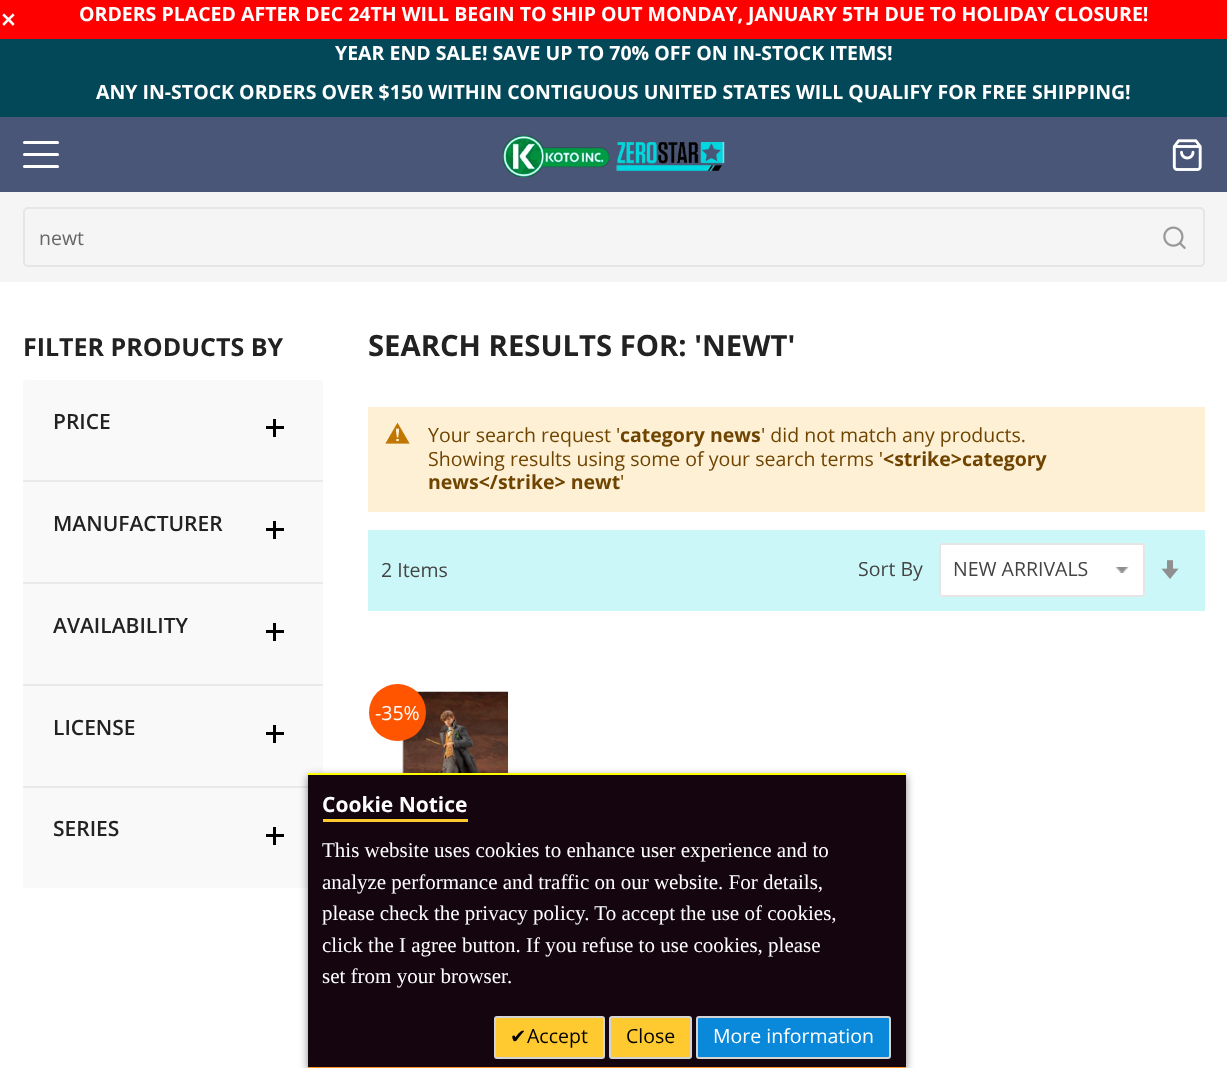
(async () => {
  const canvas = document.querySelector("canvas");
  canvas.width = 1227;
  canvas.height = 1068;
  const ctx = canvas.getContext("2d");
  ctx.miterLimit = 4;
  ctx.fontKerning = "normal";
  async function loadImage(src) {
    const img = new Image();
    img.src = src;
    await img.decode();
    return img;
  }

  ctx.fillStyle = "#ffffff";
  ctx.fillRect(0, 0, 1227, 1068);
  for (const [x, y, w, h, color] of [
    [0, 39, 1227, 78, "#034858"],
    [0, 0, 1227, 39, "#ff0000"],
    [0, 117, 1227, 75, "#4a5678"],
  ]) {
    ctx.fillStyle = color;
    ctx.fillRect(x, y, w, h);
  }
  ctx.fillStyle = "#ffffff";
  ctx.beginPath();
  ctx.roundRect(23, 141, 36, 3, 1.5);
  ctx.fill();
  ctx.beginPath();
  ctx.roundRect(23, 153, 36, 3, 1.5);
  ctx.fill();
  ctx.beginPath();
  ctx.roundRect(23, 165, 36, 3, 1.5);
  ctx.fill();
  ctx.drawImage(await loadImage("img/1.png"), 502, 135, 223, 42);
  ctx.drawImage(await loadImage("img/2.png"), 1172, 139, 30, 32);
  ctx.fillStyle = "#f5f5f5";
  ctx.fillRect(0, 192, 1227, 90);
  ctx.beginPath();
  ctx.roundRect(24, 208, 1180, 58, 4);
  ctx.strokeStyle = "#e5e5e5";
  ctx.lineWidth = 2;
  ctx.stroke();
  ctx.drawImage(await loadImage("img/3.png"), 1163, 226, 23, 23);
  ctx.fillStyle = "#f9f9f9";
  ctx.beginPath();
  ctx.roundRect(23, 380, 300, 508, 3);
  ctx.fill();
  for (const [x, y, w, h, color] of [
    [23, 480, 300, 2, "#e9e9e9"],
    [266, 426, 18, 3, "#000000"],
    [273, 419, 3, 18, "#000000"],
    [23, 582, 300, 2, "#e9e9e9"],
    [266, 528, 18, 3, "#000000"],
    [273, 521, 3, 18, "#000000"],
    [23, 684, 300, 2, "#e9e9e9"],
    [266, 630, 18, 3, "#000000"],
    [273, 623, 3, 18, "#000000"],
    [23, 786, 285, 2, "#e9e9e9"],
    [266, 732, 18, 3, "#000000"],
    [273, 725, 3, 18, "#000000"],
    [266, 834, 18, 3, "#000000"],
    [273, 827, 3, 18, "#000000"],
    [368, 407, 837, 105, "#fdf0d5"],
  ]) {
    ctx.fillStyle = color;
    ctx.fillRect(x, y, w, h);
  }
  ctx.drawImage(await loadImage("img/4.png"), 385, 422, 25, 22);
  ctx.fillStyle = "#ccf7f9";
  ctx.fillRect(368, 530, 837, 81);
  ctx.fillStyle = "#ffffff";
  ctx.beginPath();
  ctx.roundRect(939, 543, 206, 54, 3);
  ctx.fill();
  ctx.drawImage(await loadImage("img/5.png"), 1115, 567, 14, 6);
  ctx.beginPath();
  ctx.roundRect(940, 544, 204, 52, 2);
  ctx.stroke();
  ctx.drawImage(await loadImage("img/6.png"), 1161, 560, 18, 19);
  ctx.drawImage(await loadImage("img/7.png"), 398, 691, 115, 82);
  ctx.fillStyle = "#ff5500";
  ctx.beginPath();
  ctx.arc(397.5, 712.5, 28.5, 0, Math.PI * 2);
  ctx.fill();
  ctx.fillStyle = "rgba(0, 0, 0, 0.47)";
  ctx.filter = "blur(4px)";
  ctx.beginPath();
  ctx.rect(308, 776, 598, 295);
  ctx.fill();
  ctx.filter = "none";
  for (const [x, y, w, h, color] of [
    [308, 775, 598, 292, "#14050f"],
    [308, 773, 598, 2, "#ffff00"],
    [308, 1067, 598, 1, "#ff952b"],
    [323, 819, 145, 3, "#ffca30"],
  ]) {
    ctx.fillStyle = color;
    ctx.fillRect(x, y, w, h);
  }
  ctx.beginPath();
  ctx.roundRect(495, 1017, 109, 41, 2);
  ctx.fill();
  ctx.strokeStyle = "#d4d4d4";
  ctx.stroke();
  ctx.beginPath();
  ctx.roundRect(610, 1017, 81, 41, 2);
  ctx.fill();
  ctx.stroke();
  ctx.fillStyle = "#0a89da";
  ctx.beginPath();
  ctx.roundRect(697, 1017, 193, 41, 2);
  ctx.fill();
  ctx.stroke();
  ctx.font = "bold 19.5px DejaVu Sans";
  ctx.fillStyle = "#ffffff";
  ctx.fillText("✕", 0, 27);
  ctx.font = "bold 19.5px Open Sans";
  for (const [text, x, y] of [
    ["ORDERS PLACED AFTER DEC 24TH WILL BEGIN TO SHIP OUT MONDAY, JANUARY 5TH DUE TO HOLIDAY CLOSURE!", 79, 21],
    ["YEAR END SALE! SAVE UP TO 70% OFF ON IN-STOCK ITEMS!", 335, 60],
    ["ANY IN-STOCK ORDERS OVER $150 WITHIN CONTIGUOUS UNITED STATES WILL QUALIFY FOR FREE SHIPPING!", 96, 99],
  ]) {
    ctx.fillText(text, x, y);
  }
  ctx.font = "19.5px Open Sans";
  ctx.fillStyle = "#666666";
  ctx.fillText("newt", 39, 245);
  ctx.font = "bold 25px Open Sans";
  ctx.fillStyle = "#222222";
  ctx.fillText("FILTER PRODUCTS BY", 23, 356);
  ctx.font = "600 21px Open Sans";
  for (const [text, x, y] of [
    ["PRICE", 53, 429],
    ["MANUFACTURER", 53, 531],
    ["AVAILABILITY", 53, 633],
    ["LICENSE", 53, 735],
    ["SERIES", 53, 836],
  ]) {
    ctx.fillText(text, x, y);
  }
  ctx.font = "bold 29.25px Open Sans";
  ctx.fillText("SEARCH RESULTS FOR: 'NEWT'", 368, 356);
  ctx.font = "19.5px Open Sans";
  ctx.fillStyle = "#6f4400";
  ctx.fillText("Your search request '", 428, 442);
  ctx.font = "bold 19.5px Open Sans";
  ctx.fillText("category news", 620, 442);
  ctx.font = "19.5px Open Sans";
  ctx.fillText("' did not match any products.", 761, 442);
  ctx.fillText("Showing results using some of your search terms '", 428, 466);
  ctx.font = "bold 19.5px Open Sans";
  ctx.fillText("<strike>category", 883, 466);
  ctx.fillText("news<\/strike> newt", 428, 489);
  ctx.font = "19.5px Open Sans";
  ctx.fillText("'", 620, 489);
  ctx.fillStyle = "#444444";
  for (const [text, x, y] of [
    ["2 Items", 381, 577],
    ["Sort By", 858, 576],
    ["NEW ARRIVALS", 953, 576],
  ]) {
    ctx.fillText(text, x, y);
  }
  ctx.fillStyle = "#ffffff";
  ctx.fillText("-35%", 375, 720);
  ctx.font = "bold 21px Open Sans";
  ctx.fillText("Cookie Notice", 322, 812);
  ctx.font = "21px Liberation Serif";
  for (const [text, x, y] of [
    ["This website uses cookies to enhance user experience and to", 322, 857],
    ["analyze performance and traffic on our website. For details,", 322, 889],
    ["please check the privacy policy. To accept the use of cookies,", 322, 920],
    ["click the I agree button. If you refuse to use cookies, please", 322, 952],
    ["set from your browser.", 322, 983],
  ]) {
    ctx.fillText(text, x, y);
  }
  ctx.font = "19.5px DejaVu Sans";
  ctx.fillStyle = "#000000";
  ctx.fillText("✔", 510, 1043);
  ctx.font = "19.5px Open Sans";
  ctx.fillText("Accept", 527, 1043);
  ctx.fillText("Close", 626, 1043);
  ctx.fillStyle = "#ffffff";
  ctx.fillText("More information", 713, 1043);
})();
